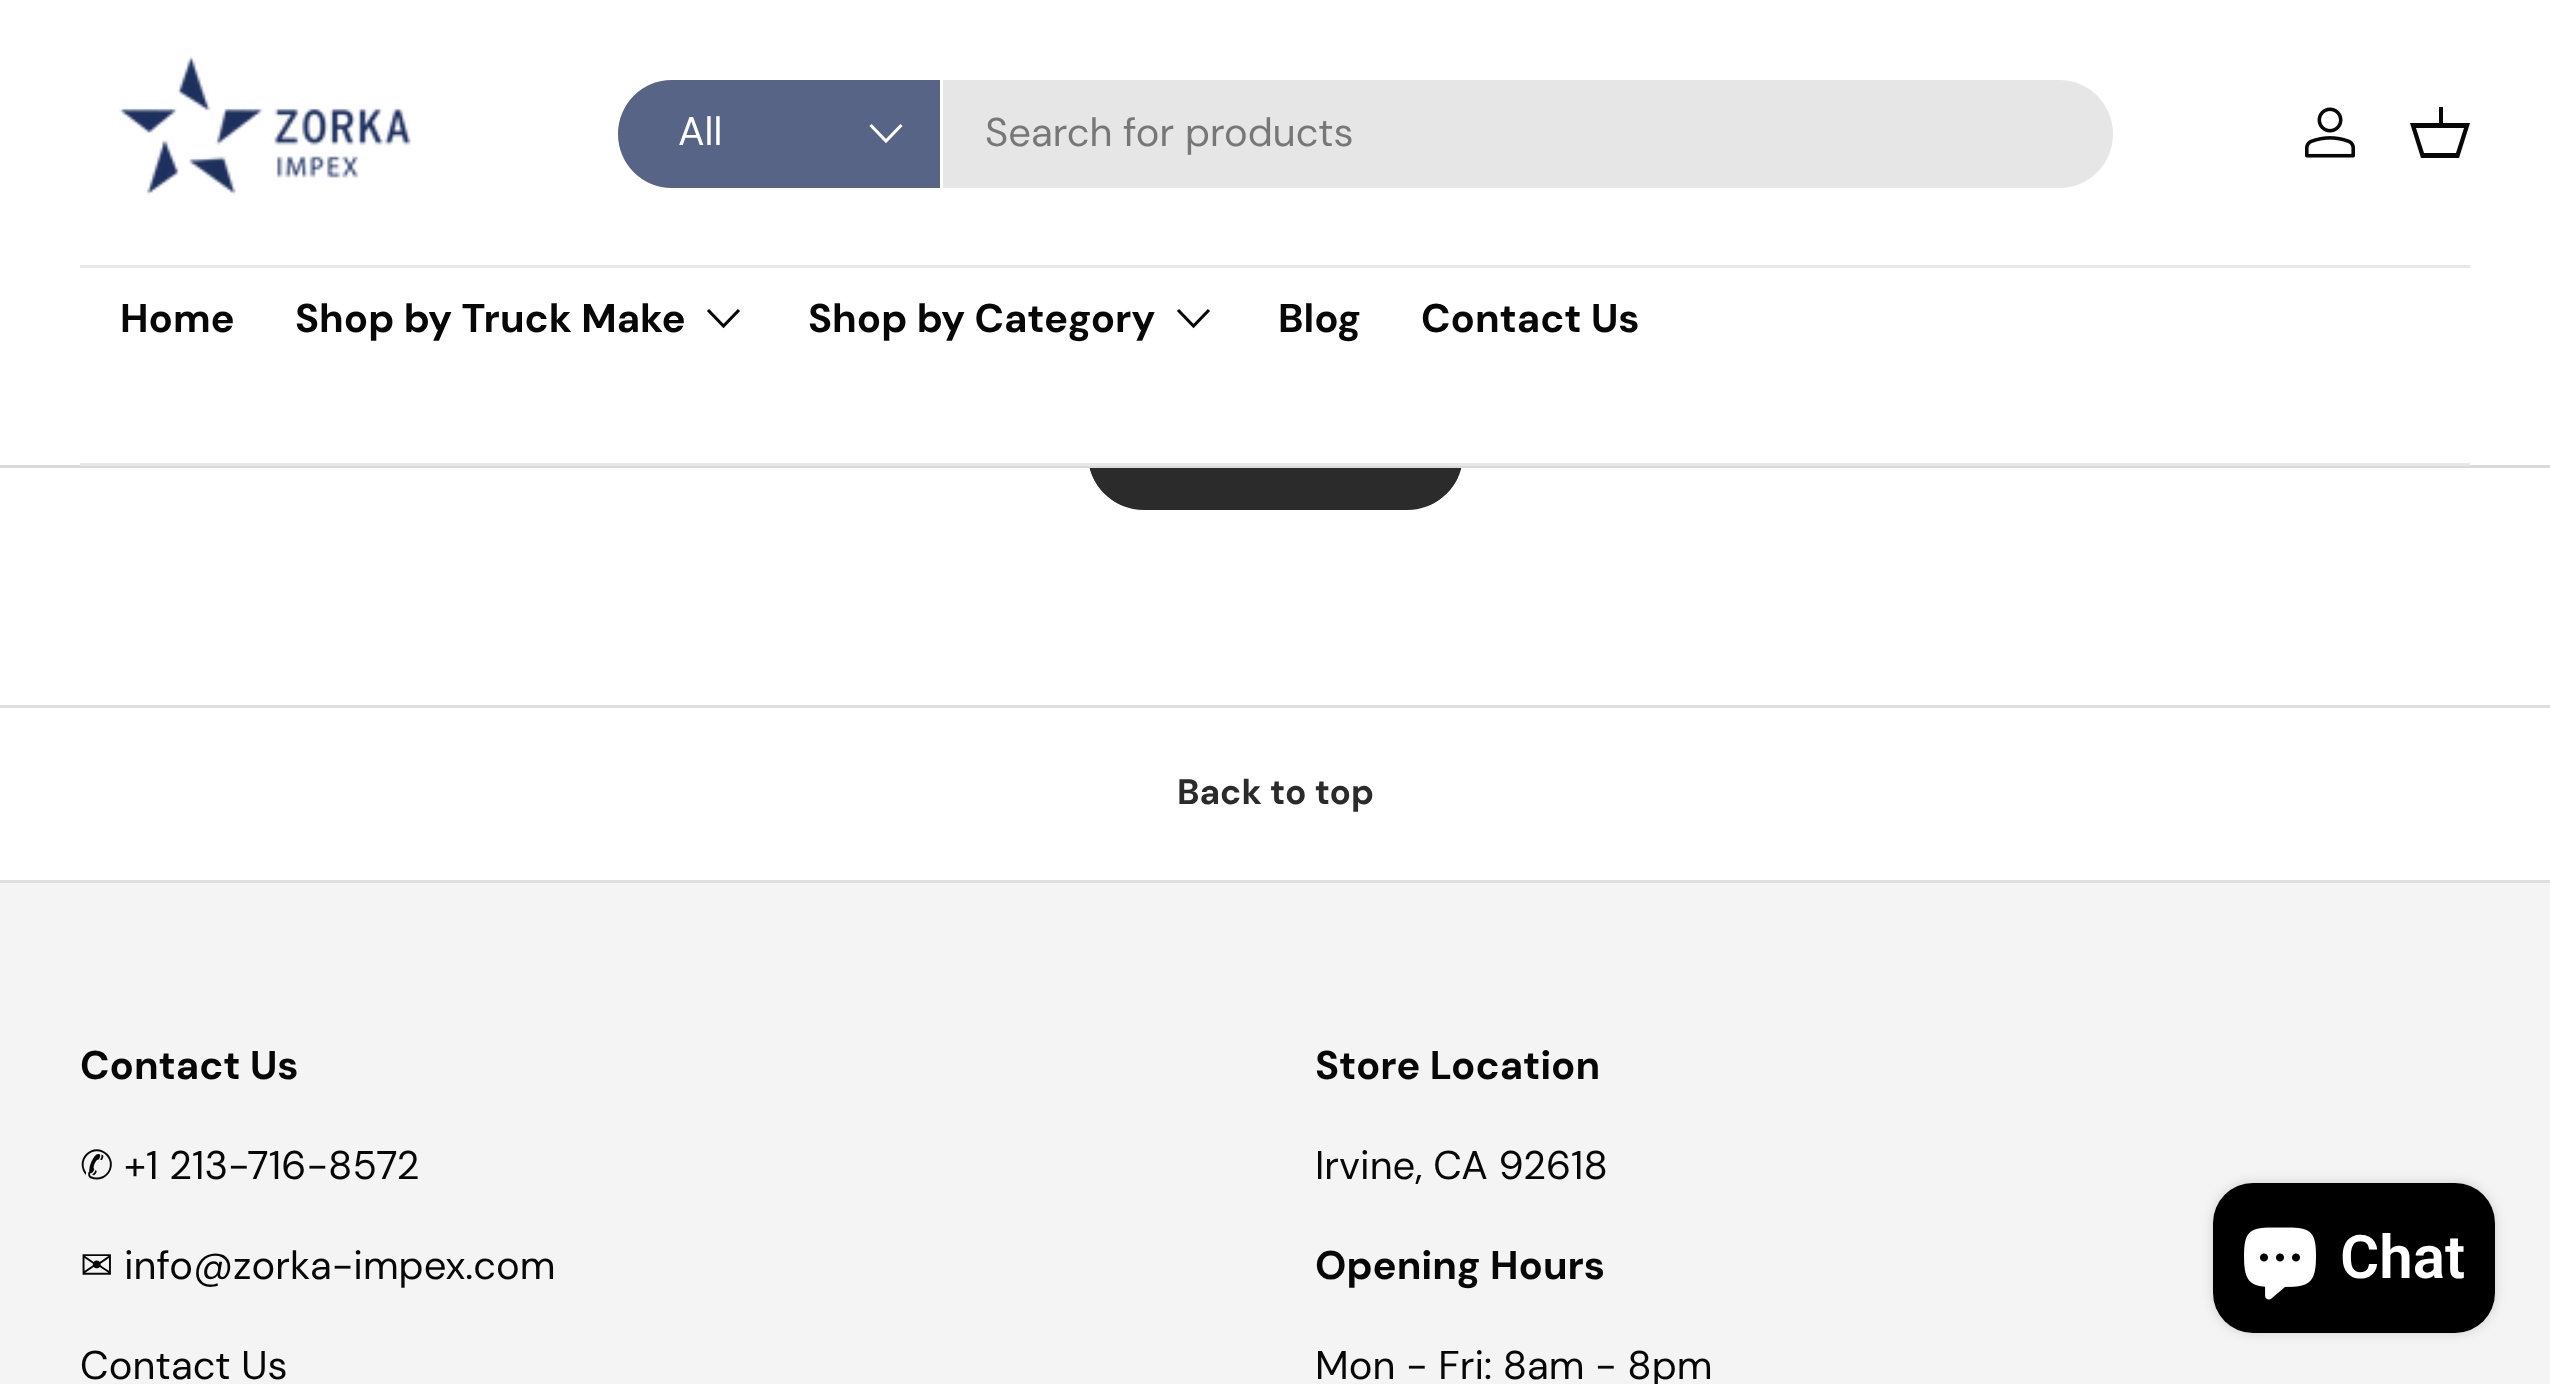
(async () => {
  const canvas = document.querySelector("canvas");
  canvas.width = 2550;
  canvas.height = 1384;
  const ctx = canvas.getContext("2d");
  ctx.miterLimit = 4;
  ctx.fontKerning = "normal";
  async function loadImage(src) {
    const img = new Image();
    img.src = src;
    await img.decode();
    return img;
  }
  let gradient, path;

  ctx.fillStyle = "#ffffff";
  ctx.fillRect(0, 0, 2550, 1384);
  ctx.save();
  ctx.beginPath();
  ctx.roundRect(1088, 398, 375, 112, 56);
  ctx.clip();
  gradient = ctx.createLinearGradient(383, 322, 1437, 585);
  gradient.addColorStop(0.6, "#525352");
  gradient.addColorStop(0.6, "#2a2b2a");
  gradient.addColorStop(1, "#2a2b2a");
  ctx.fillStyle = gradient;
  ctx.fillRect(1089, 468, 369, 37);
  ctx.restore();
  ctx.beginPath();
  ctx.roundRect(1090.5, 400.5, 370, 107, 53.5);
  ctx.strokeStyle = "#2a2b2a";
  ctx.lineWidth = 5;
  ctx.stroke();
  ctx.fillRect(1088, 398, 375, 67);
  ctx.fillStyle = "#dadada";
  ctx.fillRect(0, 465, 2550, 3);
  ctx.drawImage(await loadImage("img/1.png"), 119, 56, 292, 139);
  ctx.fillStyle = "#e6e6e6";
  ctx.beginPath();
  ctx.roundRect(618, 80, 1495, 108, 54);
  ctx.fill();
  ctx.fillStyle = "#586486";
  ctx.beginPath();
  ctx.roundRect(618, 80, 325, 108, [54, 0, 0, 54]);
  ctx.fill();
  ctx.fillStyle = "#ffffff";
  ctx.fillRect(940, 80, 3, 108);
  path = new Path2D("M901.5 125L886 141L870.5 125");
  ctx.strokeStyle = "#ffffff";
  ctx.lineWidth = 3.1;
  ctx.stroke(path);
  ctx.drawImage(await loadImage("img/2.png"), 2305, 107, 50, 51);
  ctx.fillStyle = "#070707";
  path = new Path2D("M2439 123V107H2443V123H2470L2459 158H2421L2410 123ZM2416 128L2424 153H2456L2464 128Z");
  ctx.fill(path);
  ctx.fillStyle = "#e8e8e8";
  ctx.fillRect(80, 265, 2390, 3);
  ctx.fillRect(80, 463, 2390, 3);
  path = new Path2D("M739 310L723.5 326L708 310");
  ctx.strokeStyle = "#070707";
  ctx.stroke(path);
  path = new Path2D("M1209 310L1193.5 326L1178 310");
  ctx.stroke(path);
  for (const [x, y, w, h, color] of [
    [0, 705, 2550, 3, "#dfdfdf"],
    [0, 880, 2550, 3, "#dfdfdf"],
    [0, 883, 2550, 501, "#f4f4f4"],
  ]) {
    ctx.fillStyle = color;
    ctx.fillRect(x, y, w, h);
  }
  ctx.fillStyle = "rgba(0, 0, 0, 0.15)";
  ctx.filter = "blur(6px)";
  ctx.beginPath();
  ctx.roundRect(2213, 1183, 282, 150, 40);
  ctx.fill();
  ctx.filter = "none";
  ctx.fillStyle = "#000000";
  ctx.beginPath();
  ctx.roundRect(2213, 1183, 282, 150, 40);
  ctx.fill();
  ctx.drawImage(await loadImage("img/3.png"), 2244, 1227, 72, 73);
  ctx.font = "40px DM Sans";
  ctx.fillStyle = "#ffffff";
  ctx.fillText("All", 678, 145);
  ctx.fillStyle = "#777777";
  ctx.fillText("Search for products", 985, 146);
  ctx.font = "bold 40px 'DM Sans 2'";
  ctx.fillStyle = "#070707";
  for (const [text, x, y] of [
    ["Home", 120, 332],
    ["Shop by Truck Make", 295, 332],
    ["Shop by Category", 808, 332],
    ["Blog", 1278, 332],
    ["Contact Us", 1421, 332],
  ]) {
    ctx.fillText(text, x, y);
  }
  ctx.font = "bold 35.25px DM Sans";
  ctx.fillStyle = "#2a2b2a";
  ctx.fillText("Back to top", 1177, 804);
  ctx.font = "bold 40px 'DM Sans 2'";
  ctx.fillStyle = "#070707";
  ctx.fillText("Contact Us", 80, 1079);
  ctx.font = "40px DejaVu Sans";
  ctx.fillText("✆", 80, 1179);
  ctx.font = "40px DM Sans";
  ctx.fillText("+1 213-716-8572", 124, 1179);
  ctx.font = "40px DejaVu Sans";
  ctx.fillText("✉", 80, 1279);
  ctx.font = "40px DM Sans";
  ctx.fillText("info@zorka-impex.com", 124, 1279);
  ctx.fillText("Contact Us", 80, 1379);
  ctx.font = "bold 40px 'DM Sans 2'";
  ctx.fillText("Store Location", 1315, 1079);
  ctx.font = "40px DM Sans";
  ctx.fillText("Irvine, CA 92618", 1315, 1179);
  ctx.font = "bold 40px 'DM Sans 2'";
  ctx.fillText("Opening Hours", 1315, 1279);
  ctx.font = "40px DM Sans";
  ctx.fillText("Mon - Fri: 8am - 8pm", 1315, 1379);
  ctx.font = "600 60px Roboto";
  ctx.fillStyle = "#ffffff";
  ctx.fillText("Chat", 2340, 1278);
})();
